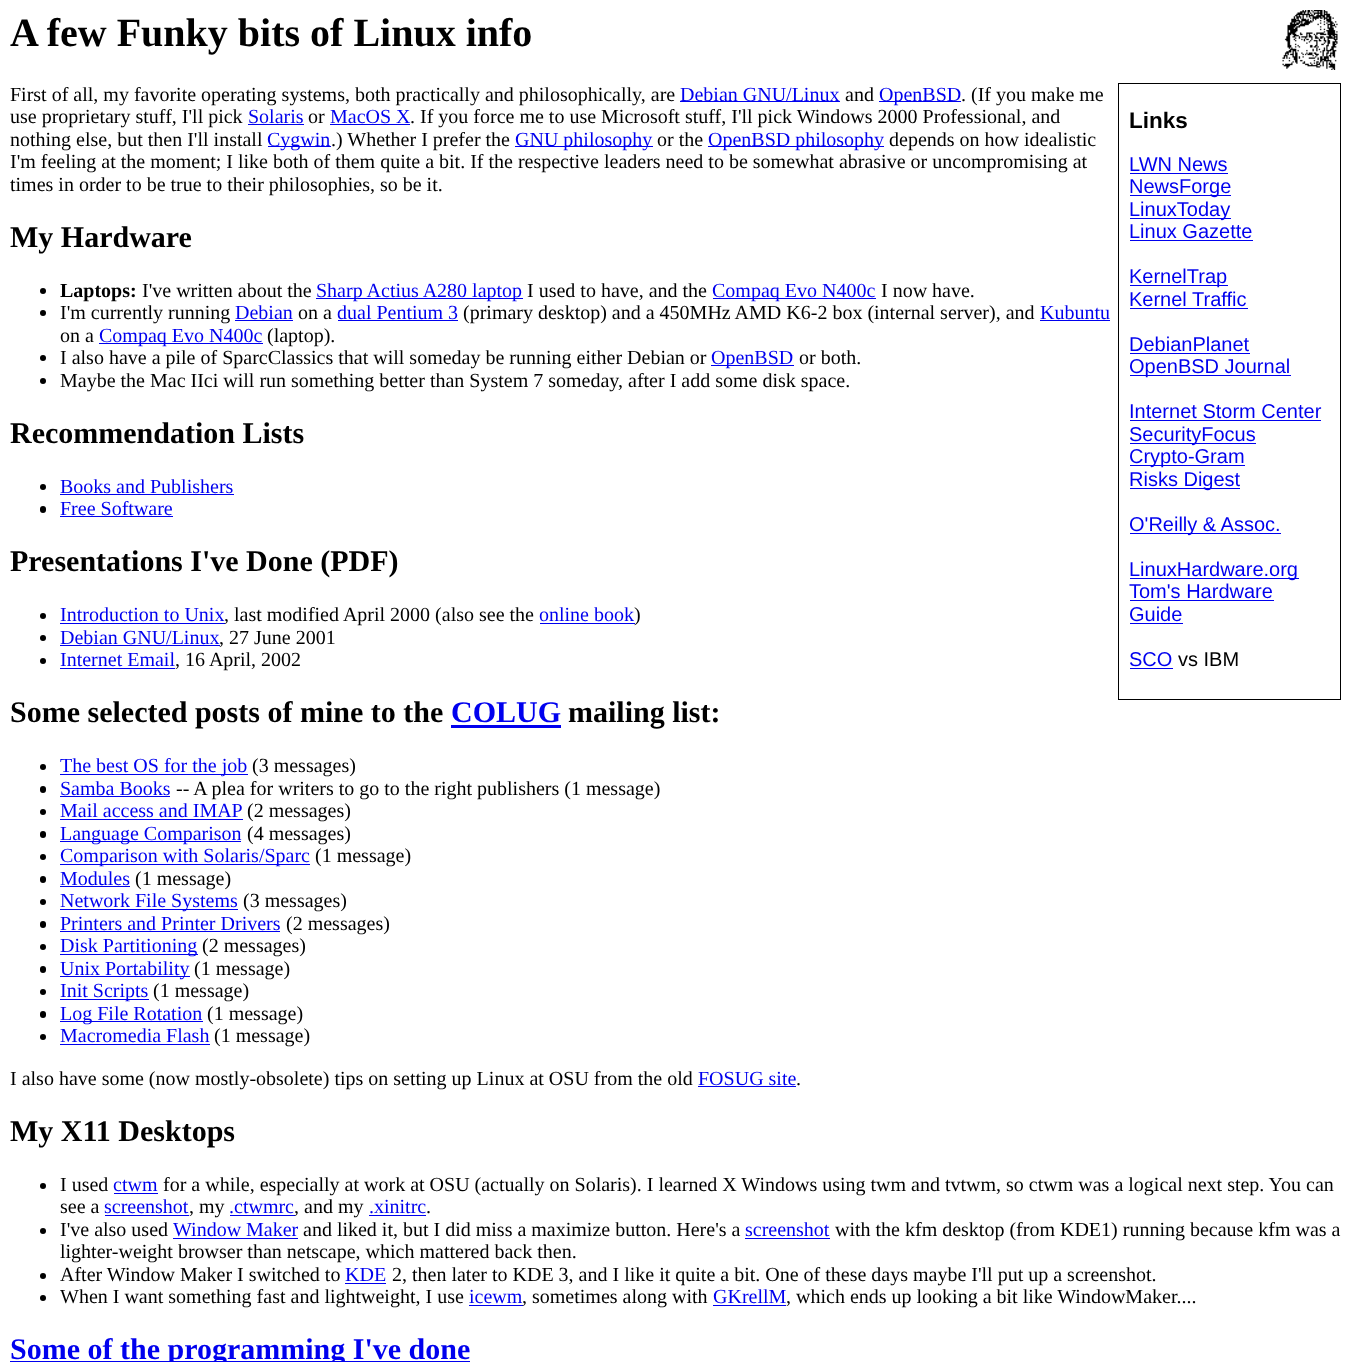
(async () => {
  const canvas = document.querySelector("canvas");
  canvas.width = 1351;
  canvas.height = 1362;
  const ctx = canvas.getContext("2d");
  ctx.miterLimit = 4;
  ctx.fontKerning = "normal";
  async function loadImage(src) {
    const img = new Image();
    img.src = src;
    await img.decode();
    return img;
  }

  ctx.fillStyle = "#ffffff";
  ctx.fillRect(0, 0, 1351, 1362);
  ctx.drawImage(await loadImage("img/1.png"), 1282, 10, 56, 60);
  for (const [x, y, w, h, color] of [
    [680, 101, 160, 1, "#0000ee"],
    [879, 101, 82, 1, "#0000ee"],
    [248, 124, 56, 1, "#0000ee"],
    [330, 124, 80, 1, "#0000ee"],
    [268, 146, 63, 1, "#0000ee"],
    [515, 146, 138, 1, "#0000ee"],
    [708, 146, 176, 1, "#0000ee"],
  ]) {
    ctx.fillStyle = color;
    ctx.fillRect(x, y, w, h);
  }
  ctx.strokeStyle = "#000000";
  ctx.strokeRect(1118.5, 83.5, 222, 616);
  for (const [x, y, w, h, color] of [
    [1130, 173, 98, 1, "#0000ee"],
    [1130, 195, 101, 1, "#0000ee"],
    [1130, 218, 101, 1, "#0000ee"],
    [1130, 240, 123, 1, "#0000ee"],
    [1130, 285, 98, 1, "#0000ee"],
    [1130, 308, 118, 1, "#0000ee"],
    [1130, 353, 120, 1, "#0000ee"],
    [1130, 375, 161, 1, "#0000ee"],
    [1130, 420, 191, 1, "#0000ee"],
    [1130, 443, 126, 1, "#0000ee"],
    [1130, 465, 115, 1, "#0000ee"],
    [1130, 488, 110, 1, "#0000ee"],
    [1130, 533, 151, 1, "#0000ee"],
    [1130, 578, 169, 1, "#0000ee"],
    [1130, 600, 144, 1, "#0000ee"],
    [1130, 623, 53, 1, "#0000ee"],
    [1130, 668, 43, 1, "#0000ee"],
  ]) {
    ctx.fillStyle = color;
    ctx.fillRect(x, y, w, h);
  }
  ctx.fillStyle = "#000000";
  ctx.beginPath();
  ctx.arc(43, 291, 3, 0, Math.PI * 2);
  ctx.fill();
  ctx.fillStyle = "#0000ee";
  ctx.fillRect(316, 298, 207, 1);
  ctx.fillRect(713, 298, 163, 1);
  ctx.fillStyle = "#000000";
  ctx.beginPath();
  ctx.arc(43, 313, 3, 0, Math.PI * 2);
  ctx.fill();
  for (const [x, y, w, h, color] of [
    [235, 320, 58, 1, "#0000ee"],
    [338, 320, 120, 1, "#0000ee"],
    [1040, 320, 70, 1, "#0000ee"],
    [99, 343, 164, 1, "#0000ee"],
  ]) {
    ctx.fillStyle = color;
    ctx.fillRect(x, y, w, h);
  }
  ctx.fillStyle = "#000000";
  ctx.beginPath();
  ctx.arc(43, 358, 3, 0, Math.PI * 2);
  ctx.fill();
  ctx.fillStyle = "#0000ee";
  ctx.fillRect(711, 365, 83, 1);
  ctx.fillStyle = "#000000";
  ctx.beginPath();
  ctx.arc(43, 381, 3, 0, Math.PI * 2);
  ctx.fill();
  ctx.beginPath();
  ctx.arc(43, 487, 3, 0, Math.PI * 2);
  ctx.fill();
  ctx.fillStyle = "#0000ee";
  ctx.fillRect(60, 494, 174, 1);
  ctx.fillStyle = "#000000";
  ctx.beginPath();
  ctx.roundRect(40, 506, 6, 7, 3);
  ctx.fill();
  ctx.fillStyle = "#0000ee";
  ctx.fillRect(60, 516, 113, 1);
  ctx.fillStyle = "#000000";
  ctx.beginPath();
  ctx.arc(43, 616, 3, 0, Math.PI * 2);
  ctx.fill();
  ctx.fillStyle = "#0000ee";
  ctx.fillRect(60, 623, 165, 1);
  ctx.fillRect(540, 623, 95, 1);
  ctx.fillStyle = "#000000";
  ctx.beginPath();
  ctx.arc(43, 638, 3, 0, Math.PI * 2);
  ctx.fill();
  ctx.fillStyle = "#0000ee";
  ctx.fillRect(60, 645, 160, 1);
  ctx.fillStyle = "#000000";
  ctx.beginPath();
  ctx.arc(43, 661, 3, 0, Math.PI * 2);
  ctx.fill();
  ctx.fillStyle = "#0000ee";
  ctx.fillRect(60, 668, 115, 1);
  ctx.fillRect(451, 725, 110, 3);
  ctx.fillStyle = "#000000";
  ctx.beginPath();
  ctx.arc(43, 767, 3, 0, Math.PI * 2);
  ctx.fill();
  ctx.fillStyle = "#0000ee";
  ctx.fillRect(60, 774, 188, 1);
  ctx.fillStyle = "#000000";
  ctx.beginPath();
  ctx.roundRect(40, 786, 6, 7, 3);
  ctx.fill();
  ctx.fillStyle = "#0000ee";
  ctx.fillRect(60, 796, 110, 1);
  ctx.fillStyle = "#000000";
  ctx.beginPath();
  ctx.arc(43, 812, 3, 0, Math.PI * 2);
  ctx.fill();
  ctx.fillStyle = "#0000ee";
  ctx.fillRect(60, 819, 183, 1);
  ctx.fillStyle = "#000000";
  ctx.beginPath();
  ctx.roundRect(40, 831, 6, 7, 3);
  ctx.fill();
  ctx.fillStyle = "#0000ee";
  ctx.fillRect(60, 841, 181, 1);
  ctx.fillStyle = "#000000";
  ctx.beginPath();
  ctx.arc(43, 857, 3, 0, Math.PI * 2);
  ctx.fill();
  ctx.fillStyle = "#0000ee";
  ctx.fillRect(60, 864, 250, 1);
  ctx.fillStyle = "#000000";
  ctx.beginPath();
  ctx.roundRect(40, 876, 6, 7, 3);
  ctx.fill();
  ctx.fillStyle = "#0000ee";
  ctx.fillRect(60, 886, 70, 1);
  ctx.fillStyle = "#000000";
  ctx.beginPath();
  ctx.arc(43, 902, 3, 0, Math.PI * 2);
  ctx.fill();
  ctx.fillStyle = "#0000ee";
  ctx.fillRect(60, 909, 178, 1);
  ctx.fillStyle = "#000000";
  ctx.beginPath();
  ctx.roundRect(40, 921, 6, 7, 3);
  ctx.fill();
  ctx.fillStyle = "#0000ee";
  ctx.fillRect(60, 931, 220, 1);
  ctx.fillStyle = "#000000";
  ctx.beginPath();
  ctx.arc(43, 947, 3, 0, Math.PI * 2);
  ctx.fill();
  ctx.fillStyle = "#0000ee";
  ctx.fillRect(60, 954, 138, 1);
  ctx.fillStyle = "#000000";
  ctx.beginPath();
  ctx.roundRect(40, 966, 6, 7, 3);
  ctx.fill();
  ctx.fillStyle = "#0000ee";
  ctx.fillRect(60, 976, 130, 1);
  ctx.fillStyle = "#000000";
  ctx.beginPath();
  ctx.arc(43, 992, 3, 0, Math.PI * 2);
  ctx.fill();
  ctx.fillStyle = "#0000ee";
  ctx.fillRect(60, 999, 89, 1);
  ctx.fillStyle = "#000000";
  ctx.beginPath();
  ctx.roundRect(40, 1011, 6, 7, 3);
  ctx.fill();
  ctx.fillStyle = "#0000ee";
  ctx.fillRect(60, 1021, 143, 1);
  ctx.fillStyle = "#000000";
  ctx.beginPath();
  ctx.arc(43, 1037, 3, 0, Math.PI * 2);
  ctx.fill();
  ctx.fillStyle = "#0000ee";
  ctx.fillRect(60, 1044, 150, 1);
  ctx.fillRect(698, 1086, 98, 1);
  ctx.fillStyle = "#000000";
  ctx.beginPath();
  ctx.arc(43, 1186, 3, 0, Math.PI * 2);
  ctx.fill();
  for (const [x, y, w, h, color] of [
    [114, 1193, 44, 1, "#0000ee"],
    [105, 1215, 84, 1, "#0000ee"],
    [230, 1215, 65, 1, "#0000ee"],
    [369, 1215, 57, 1, "#0000ee"],
  ]) {
    ctx.fillStyle = color;
    ctx.fillRect(x, y, w, h);
  }
  ctx.fillStyle = "#000000";
  ctx.beginPath();
  ctx.arc(43, 1231, 3, 0, Math.PI * 2);
  ctx.fill();
  ctx.fillStyle = "#0000ee";
  ctx.fillRect(173, 1238, 125, 1);
  ctx.fillRect(745, 1238, 85, 1);
  ctx.fillStyle = "#000000";
  ctx.beginPath();
  ctx.arc(43, 1276, 3, 0, Math.PI * 2);
  ctx.fill();
  ctx.fillStyle = "#0000ee";
  ctx.fillRect(345, 1283, 41, 1);
  ctx.fillStyle = "#000000";
  ctx.beginPath();
  ctx.arc(43, 1298, 3, 0, Math.PI * 2);
  ctx.fill();
  for (const [x, y, w, h, color] of [
    [469, 1305, 54, 1, "#0000ee"],
    [713, 1305, 73, 1, "#0000ee"],
    [10, 1361, 460, 1, "#0000ee"],
  ]) {
    ctx.fillStyle = color;
    ctx.fillRect(x, y, w, h);
  }
  ctx.font = "bold 40px Liberation Serif";
  ctx.fillStyle = "#000000";
  ctx.fillText("A few Funky bits of Linux info", 10, 46);
  ctx.font = "20px Liberation Serif";
  ctx.fillText("First of all, my favorite operating systems, both practically and philosophically, are", 10, 101);
  ctx.fillStyle = "#0000ee";
  ctx.fillText("Debian GNU/Linux", 680, 101);
  ctx.fillStyle = "#000000";
  ctx.fillText("and", 845, 101);
  ctx.fillStyle = "#0000ee";
  ctx.fillText("OpenBSD", 879, 101);
  ctx.fillStyle = "#000000";
  ctx.fillText(". (If you make me", 961, 101);
  ctx.fillText("use proprietary stuff, I'll pick", 10, 123);
  ctx.fillStyle = "#0000ee";
  ctx.fillText("Solaris", 248, 123);
  ctx.fillStyle = "#000000";
  ctx.fillText("or", 308, 123);
  ctx.fillStyle = "#0000ee";
  ctx.fillText("MacOS X", 330, 123);
  ctx.fillStyle = "#000000";
  ctx.fillText(". If you force me to use Microsoft stuff, I'll pick Windows 2000 Professional, and", 410, 123);
  ctx.fillText("nothing else, but then I'll install", 10, 146);
  ctx.fillStyle = "#0000ee";
  ctx.fillText("Cygwin", 267, 146);
  ctx.fillStyle = "#000000";
  ctx.fillText(".) Whether I prefer the", 331, 146);
  ctx.fillStyle = "#0000ee";
  ctx.fillText("GNU philosophy", 515, 146);
  ctx.fillStyle = "#000000";
  ctx.fillText("or the", 657, 146);
  ctx.fillStyle = "#0000ee";
  ctx.fillText("OpenBSD philosophy", 708, 146);
  ctx.fillStyle = "#000000";
  for (const [text, x, y] of [
    ["depends on how idealistic", 889, 146],
    ["I'm feeling at the moment; I like both of them quite a bit. If the respective leaders need to be somewhat abrasive or uncompromising at", 10, 168],
    ["times in order to be true to their philosophies, so be it.", 10, 191],
  ]) {
    ctx.fillText(text, x, y);
  }
  ctx.font = "bold 22.5px Liberation Sans";
  ctx.fillText("Links", 1129, 128);
  ctx.font = "20px Liberation Sans";
  ctx.fillStyle = "#0000ee";
  for (const [text, x, y] of [
    ["LWN News", 1129, 171],
    ["NewsForge", 1129, 193],
    ["LinuxToday", 1129, 216],
    ["Linux Gazette", 1129, 238],
    ["KernelTrap", 1129, 283],
    ["Kernel Traffic", 1129, 306],
    ["DebianPlanet", 1129, 351],
    ["OpenBSD Journal", 1129, 373],
    ["Internet Storm Center", 1129, 418],
    ["SecurityFocus", 1129, 441],
    ["Crypto-Gram", 1129, 463],
    ["Risks Digest", 1129, 486],
    ["O'Reilly & Assoc.", 1129, 531],
    ["LinuxHardware.org", 1129, 576],
    ["Tom's Hardware", 1129, 598],
    ["Guide", 1129, 621],
    ["SCO", 1129, 666],
  ]) {
    ctx.fillText(text, x, y);
  }
  ctx.fillStyle = "#000000";
  ctx.fillText("vs IBM", 1178, 666);
  ctx.font = "bold 30px Liberation Serif";
  ctx.fillText("My Hardware", 10, 247);
  ctx.font = "bold 20px Liberation Serif";
  ctx.fillText("Laptops:", 60, 297);
  ctx.font = "20px Liberation Serif";
  ctx.fillText("I've written about the", 142, 297);
  ctx.fillStyle = "#0000ee";
  ctx.fillText("Sharp Actius A280 laptop", 316, 297);
  ctx.fillStyle = "#000000";
  ctx.fillText("I used to have, and the", 527, 297);
  ctx.fillStyle = "#0000ee";
  ctx.fillText("Compaq Evo N400c", 712, 297);
  ctx.fillStyle = "#000000";
  ctx.fillText("I now have.", 881, 297);
  ctx.fillText("I'm currently running", 60, 319);
  ctx.fillStyle = "#0000ee";
  ctx.fillText("Debian", 235, 319);
  ctx.fillStyle = "#000000";
  ctx.fillText("on a", 298, 319);
  ctx.fillStyle = "#0000ee";
  ctx.fillText("dual Pentium 3", 337, 319);
  ctx.fillStyle = "#000000";
  ctx.fillText("(primary desktop) and a 450MHz AMD K6-2 box (internal server), and", 463, 319);
  ctx.fillStyle = "#0000ee";
  ctx.fillText("Kubuntu", 1040, 319);
  ctx.fillStyle = "#000000";
  ctx.fillText("on a", 60, 342);
  ctx.fillStyle = "#0000ee";
  ctx.fillText("Compaq Evo N400c", 99, 342);
  ctx.fillStyle = "#000000";
  ctx.fillText("(laptop).", 267, 342);
  ctx.fillText("I also have a pile of SparcClassics that will someday be running either Debian or", 60, 364);
  ctx.fillStyle = "#0000ee";
  ctx.fillText("OpenBSD", 711, 364);
  ctx.fillStyle = "#000000";
  ctx.fillText("or both.", 799, 364);
  ctx.fillText("Maybe the Mac IIci will run something better than System 7 someday, after I add some disk space.", 60, 387);
  ctx.font = "bold 30px Liberation Serif";
  ctx.fillText("Recommendation Lists", 10, 443);
  ctx.font = "20px Liberation Serif";
  ctx.fillStyle = "#0000ee";
  ctx.fillText("Books and Publishers", 60, 493);
  ctx.fillText("Free Software", 60, 515);
  ctx.font = "bold 30px Liberation Serif";
  ctx.fillStyle = "#000000";
  ctx.fillText("Presentations I've Done (PDF)", 10, 571);
  ctx.font = "20px Liberation Serif";
  ctx.fillStyle = "#0000ee";
  ctx.fillText("Introduction to Unix", 60, 621);
  ctx.fillStyle = "#000000";
  ctx.fillText(", last modified April 2000 (also see the", 224, 621);
  ctx.fillStyle = "#0000ee";
  ctx.fillText("online book", 539, 621);
  ctx.fillStyle = "#000000";
  ctx.fillText(")", 634, 621);
  ctx.fillStyle = "#0000ee";
  ctx.fillText("Debian GNU/Linux", 60, 644);
  ctx.fillStyle = "#000000";
  ctx.fillText(", 27 June 2001", 219, 644);
  ctx.fillStyle = "#0000ee";
  ctx.fillText("Internet Email", 60, 666);
  ctx.fillStyle = "#000000";
  ctx.fillText(", 16 April, 2002", 175, 666);
  ctx.font = "bold 30px Liberation Serif";
  ctx.fillText("Some selected posts of mine to the", 10, 722);
  ctx.fillStyle = "#0000ee";
  ctx.fillText("COLUG", 451, 722);
  ctx.fillStyle = "#000000";
  ctx.fillText("mailing list:", 568, 722);
  ctx.font = "20px Liberation Serif";
  ctx.fillStyle = "#0000ee";
  ctx.fillText("The best OS for the job", 60, 772);
  ctx.fillStyle = "#000000";
  ctx.fillText("(3 messages)", 252, 772);
  ctx.fillStyle = "#0000ee";
  ctx.fillText("Samba Books", 60, 795);
  ctx.fillStyle = "#000000";
  ctx.fillText("-- A plea for writers to go to the right publishers (1 message)", 176, 795);
  ctx.fillStyle = "#0000ee";
  ctx.fillText("Mail access and IMAP", 60, 817);
  ctx.fillStyle = "#000000";
  ctx.fillText("(2 messages)", 247, 817);
  ctx.fillStyle = "#0000ee";
  ctx.fillText("Language Comparison", 60, 840);
  ctx.fillStyle = "#000000";
  ctx.fillText("(4 messages)", 247, 840);
  ctx.fillStyle = "#0000ee";
  ctx.fillText("Comparison with Solaris/Sparc", 60, 862);
  ctx.fillStyle = "#000000";
  ctx.fillText("(1 message)", 315, 862);
  ctx.fillStyle = "#0000ee";
  ctx.fillText("Modules", 60, 885);
  ctx.fillStyle = "#000000";
  ctx.fillText("(1 message)", 135, 885);
  ctx.fillStyle = "#0000ee";
  ctx.fillText("Network File Systems", 60, 907);
  ctx.fillStyle = "#000000";
  ctx.fillText("(3 messages)", 243, 907);
  ctx.fillStyle = "#0000ee";
  ctx.fillText("Printers and Printer Drivers", 60, 930);
  ctx.fillStyle = "#000000";
  ctx.fillText("(2 messages)", 286, 930);
  ctx.fillStyle = "#0000ee";
  ctx.fillText("Disk Partitioning", 60, 952);
  ctx.fillStyle = "#000000";
  ctx.fillText("(2 messages)", 202, 952);
  ctx.fillStyle = "#0000ee";
  ctx.fillText("Unix Portability", 60, 975);
  ctx.fillStyle = "#000000";
  ctx.fillText("(1 message)", 194, 975);
  ctx.fillStyle = "#0000ee";
  ctx.fillText("Init Scripts", 60, 997);
  ctx.fillStyle = "#000000";
  ctx.fillText("(1 message)", 153, 997);
  ctx.fillStyle = "#0000ee";
  ctx.fillText("Log File Rotation", 60, 1020);
  ctx.fillStyle = "#000000";
  ctx.fillText("(1 message)", 207, 1020);
  ctx.fillStyle = "#0000ee";
  ctx.fillText("Macromedia Flash", 60, 1042);
  ctx.fillStyle = "#000000";
  ctx.fillText("(1 message)", 214, 1042);
  ctx.fillText("I also have some (now mostly-obsolete) tips on setting up Linux at OSU from the old", 10, 1085);
  ctx.fillStyle = "#0000ee";
  ctx.fillText("FOSUG site", 698, 1085);
  ctx.fillStyle = "#000000";
  ctx.fillText(".", 796, 1085);
  ctx.font = "bold 30px Liberation Serif";
  ctx.fillText("My X11 Desktops", 10, 1141);
  ctx.font = "20px Liberation Serif";
  ctx.fillText("I used", 60, 1191);
  ctx.fillStyle = "#0000ee";
  ctx.fillText("ctwm", 113, 1191);
  ctx.fillStyle = "#000000";
  ctx.fillText("for a while, especially at work at OSU (actually on Solaris). I learned X Windows using twm and tvtwm, so ctwm was a logical next step. You can", 163, 1191);
  ctx.fillText("see a", 60, 1213);
  ctx.fillStyle = "#0000ee";
  ctx.fillText("screenshot", 104, 1213);
  ctx.fillStyle = "#000000";
  ctx.fillText(", my", 189, 1213);
  ctx.fillStyle = "#0000ee";
  ctx.fillText(".ctwmrc", 229, 1213);
  ctx.fillStyle = "#000000";
  ctx.fillText(", and my", 294, 1213);
  ctx.fillStyle = "#0000ee";
  ctx.fillText(".xinitrc", 369, 1213);
  ctx.fillStyle = "#000000";
  ctx.fillText(".", 426, 1213);
  ctx.fillText("I've also used", 60, 1236);
  ctx.fillStyle = "#0000ee";
  ctx.fillText("Window Maker", 173, 1236);
  ctx.fillStyle = "#000000";
  ctx.fillText("and liked it, but I did miss a maximize button. Here's a", 303, 1236);
  ctx.fillStyle = "#0000ee";
  ctx.fillText("screenshot", 745, 1236);
  ctx.fillStyle = "#000000";
  for (const [text, x, y] of [
    ["with the kfm desktop (from KDE1) running because kfm was a", 835, 1236],
    ["lighter-weight browser than netscape, which mattered back then.", 60, 1258],
    ["After Window Maker I switched to", 60, 1281],
  ]) {
    ctx.fillText(text, x, y);
  }
  ctx.fillStyle = "#0000ee";
  ctx.fillText("KDE", 345, 1281);
  ctx.fillStyle = "#000000";
  ctx.fillText("2, then later to KDE 3, and I like it quite a bit. One of these days maybe I'll put up a screenshot.", 392, 1281);
  ctx.fillText("When I want something fast and lightweight, I use", 60, 1303);
  ctx.fillStyle = "#0000ee";
  ctx.fillText("icewm", 469, 1303);
  ctx.fillStyle = "#000000";
  ctx.fillText(", sometimes along with", 522, 1303);
  ctx.fillStyle = "#0000ee";
  ctx.fillText("GKrellM", 713, 1303);
  ctx.fillStyle = "#000000";
  ctx.fillText(", which ends up looking a bit like WindowMaker....", 786, 1303);
  ctx.font = "bold 30px Liberation Serif";
  ctx.fillStyle = "#0000ee";
  ctx.fillText("Some of the programming I've done", 10, 1359);
})();
